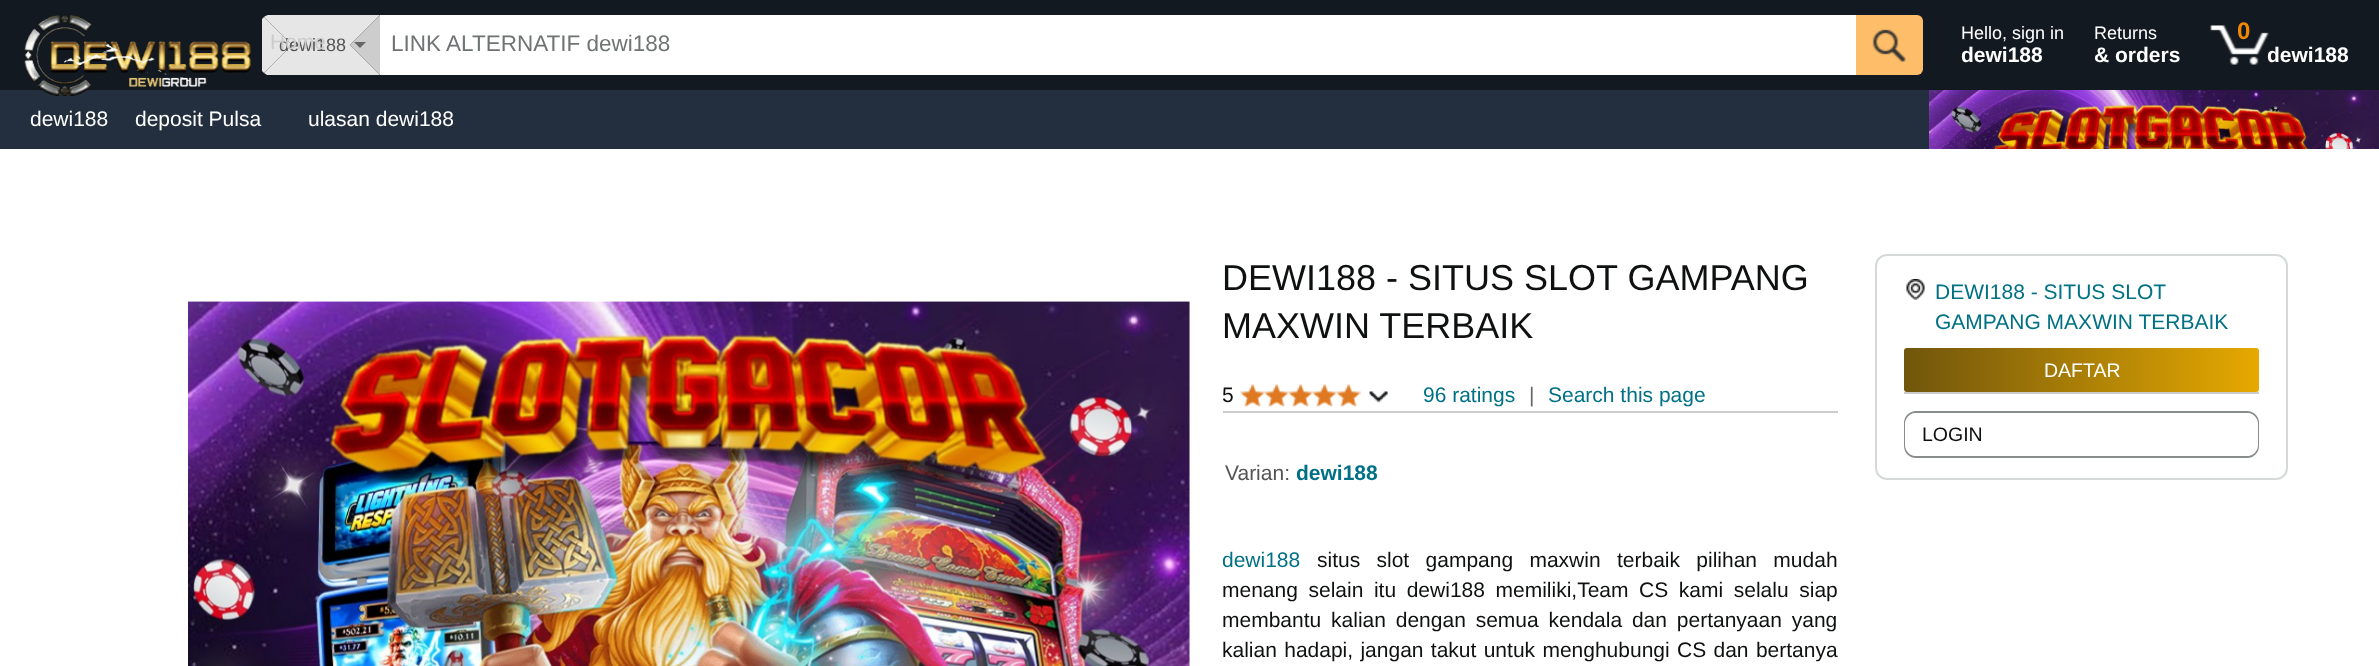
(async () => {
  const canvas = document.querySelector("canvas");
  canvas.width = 2379;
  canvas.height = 666;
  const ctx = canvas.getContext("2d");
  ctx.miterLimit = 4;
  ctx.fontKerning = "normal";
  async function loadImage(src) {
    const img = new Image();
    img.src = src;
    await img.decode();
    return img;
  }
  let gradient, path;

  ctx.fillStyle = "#ffffff";
  ctx.fillRect(0, 0, 2379, 666);
  ctx.fillStyle = "#131921";
  ctx.fillRect(0, 0, 2379, 90);
  ctx.fillStyle = "#232f3e";
  ctx.fillRect(0, 90, 2379, 59);
  ctx.drawImage(await loadImage("img/1.png"), 24, 15, 227, 81);
  ctx.fillStyle = "#e6e6e6";
  path = new Path2D("M268 15H380L350 45H292L264 17C265 16 267 15 268 15Z");
  ctx.fill(path);
  ctx.fillStyle = "#cdcdcd";
  path = new Path2D("M380 15L350 45L380 75Z");
  ctx.fill(path);
  ctx.fillStyle = "#e6e6e6";
  path = new Path2D("M380 75L350 45H292L264 73L267 75Z");
  ctx.fill(path);
  path = new Path2D("M264 73L292 45L264 17L262 19V71Z");
  ctx.fill(path);
  ctx.fillStyle = "#666666";
  path = new Path2D("M354 42H366L360 48Z");
  ctx.fill(path);
  ctx.fillStyle = "#ffffff";
  ctx.fillRect(380, 15, 1476, 60);
  ctx.fillStyle = "#febd69";
  ctx.beginPath();
  ctx.roundRect(1856, 15, 67, 60, [0, 6, 6, 0]);
  ctx.fill();
  ctx.drawImage(await loadImage("img/2.png"), 1872, 29, 34, 33);
  ctx.drawImage(await loadImage("img/4.png"), 1929, 90, 450, 59);
  ctx.drawImage(await loadImage("img/5.png"), 188, 301, 1002, 365);
  ctx.drawImage(await loadImage("img/6.png"), 1240, 384, 121, 23);
  ctx.drawImage(await loadImage("img/7.png"), 1369, 391, 19, 12);
  ctx.fillStyle = "#cccccc";
  ctx.fillRect(1223, 411, 615, 2);
  ctx.beginPath();
  ctx.roundRect(1876, 255, 411, 224, 11);
  ctx.strokeStyle = "#d5d9d9";
  ctx.lineWidth = 2;
  ctx.stroke();
  ctx.drawImage(await loadImage("img/8.png"), 1906, 279, 19, 21);
  gradient = ctx.createLinearGradient(1904, 370, 2259, 370);
  gradient.addColorStop(0, "#70550c");
  gradient.addColorStop(1, "#e6a901");
  ctx.fillStyle = gradient;
  ctx.beginPath();
  ctx.roundRect(1904, 348, 355, 44, 3);
  ctx.fill();
  ctx.fillStyle = "#cccccc";
  ctx.fillRect(1904, 392, 355, 2);
  ctx.beginPath();
  ctx.roundRect(1905, 412, 353, 45, 11);
  ctx.strokeStyle = "#888c8c";
  ctx.stroke();
  ctx.fillStyle = "#ffffff";
  ctx.beginPath();
  ctx.roundRect(1905, 413, 353, 43, 11);
  ctx.fill();
  ctx.font = "18px Liberation Sans";
  ctx.fillStyle = "#555555";
  ctx.fillText("dewi188", 279, 51);
  ctx.font = "21px Liberation Sans";
  ctx.fillStyle = "#cccccc";
  ctx.fillText("Home", 270, 49);
  ctx.font = "22.5px Liberation Sans";
  ctx.fillStyle = "#6f7373";
  ctx.fillText("LINK ALTERNATIF dewi188", 391, 51);
  ctx.font = "18px Liberation Sans";
  ctx.fillStyle = "#ffffff";
  ctx.fillText("Hello, sign in", 1961, 39);
  ctx.font = "bold 21px Liberation Sans";
  ctx.fillText("dewi188", 1961, 62);
  ctx.font = "18px Liberation Sans";
  ctx.fillText("Returns", 2094, 39);
  ctx.font = "bold 21px Liberation Sans";
  ctx.fillText("& orders", 2094, 62);
  ctx.fillText("dewi188", 2267, 62);
  ctx.drawImage(await loadImage("img/3.png"), 2210, 25, 59, 40);
  ctx.font = "bold 24px Liberation Sans";
  ctx.fillStyle = "#f08804";
  ctx.fillText("0", 2237, 39);
  ctx.font = "21px Liberation Sans";
  ctx.fillStyle = "#ffffff";
  for (const [text, x, y] of [
    ["dewi188", 30, 126],
    ["deposit Pulsa", 135, 126],
    ["ulasan dewi188", 308, 126],
  ]) {
    ctx.fillText(text, x, y);
  }
  ctx.font = "36px Liberation Sans";
  ctx.fillStyle = "#0f1111";
  ctx.fillText("DEWI188 - SITUS SLOT GAMPANG", 1222, 290);
  ctx.fillText("MAXWIN TERBAIK", 1222, 338);
  ctx.font = "21px Liberation Sans";
  ctx.fillText("5", 1222, 402);
  ctx.fillStyle = "#007185";
  ctx.fillText("96 ratings", 1423, 402);
  ctx.fillStyle = "#666666";
  ctx.fillText("|", 1529, 402);
  ctx.fillStyle = "#007185";
  ctx.fillText("Search this page", 1548, 402);
  ctx.fillStyle = "#555555";
  ctx.fillText("Varian:", 1225, 480);
  ctx.font = "bold 21px Liberation Sans";
  ctx.fillStyle = "#007185";
  ctx.fillText("dewi188", 1296, 480);
  ctx.font = "21px Liberation Sans";
  ctx.fillText("dewi188", 1222, 567);
  ctx.wordSpacing = "10.5px";
  ctx.fillStyle = "#0f1111";
  ctx.fillText("situs slot gampang maxwin terbaik pilihan mudah", 1317, 567);
  ctx.wordSpacing = "4.75px";
  ctx.fillText("menang selain itu dewi188 memiliki,Team CS kami selalu siap", 1222, 597);
  ctx.wordSpacing = "4px";
  ctx.fillText("membantu kalian dengan semua kendala dan pertanyaan yang", 1222, 627);
  ctx.wordSpacing = "1.5px";
  ctx.fillText("kalian hadapi, jangan takut untuk menghubungi CS dan bertanya", 1222, 657);
  ctx.wordSpacing = "0px";
  ctx.fillStyle = "#007185";
  ctx.fillText("DEWI188 - SITUS SLOT", 1935, 299);
  ctx.fillText("GAMPANG MAXWIN TERBAIK", 1935, 329);
  ctx.font = "19.5px Liberation Sans";
  ctx.fillStyle = "#ffffff";
  ctx.fillText("DAFTAR", 2044, 377);
  ctx.fillStyle = "#0f1111";
  ctx.fillText("LOGIN", 1922, 441);
})();
